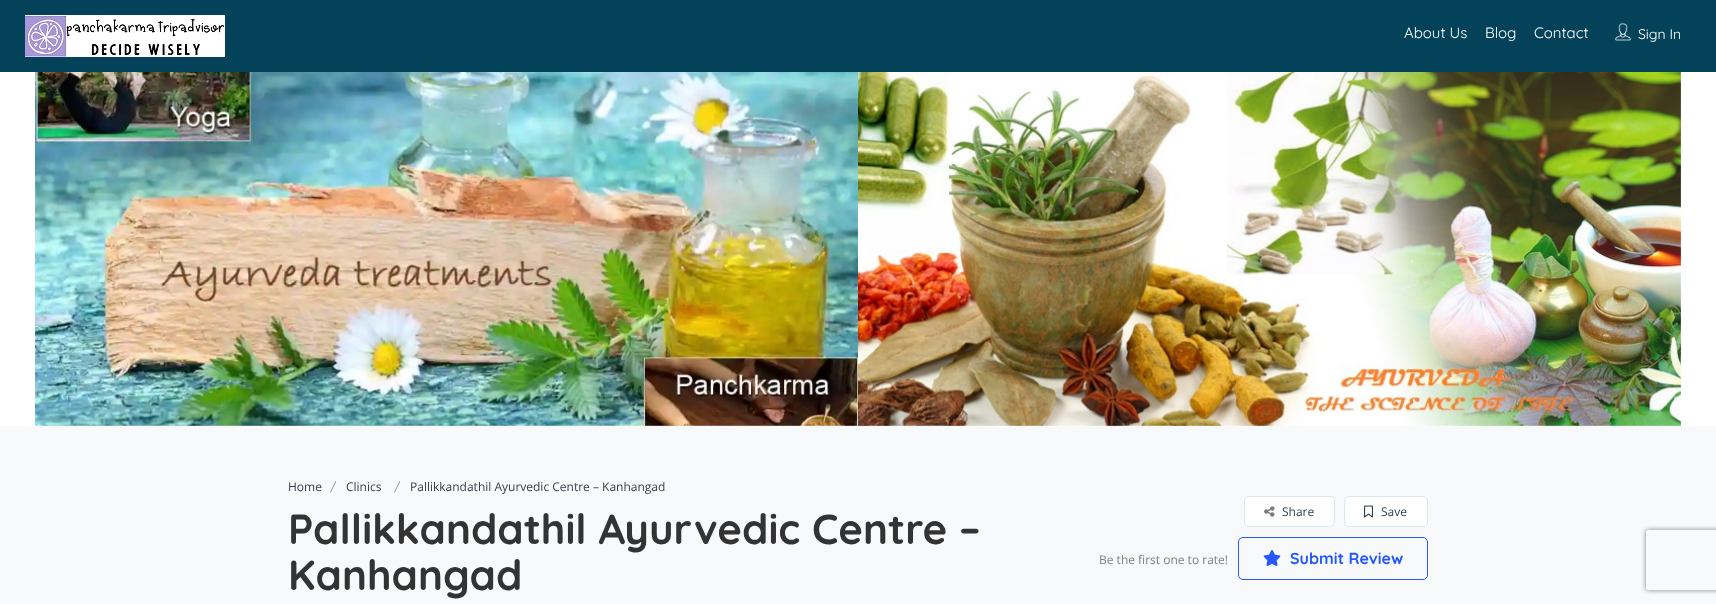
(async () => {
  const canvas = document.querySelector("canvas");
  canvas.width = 1716;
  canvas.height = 604;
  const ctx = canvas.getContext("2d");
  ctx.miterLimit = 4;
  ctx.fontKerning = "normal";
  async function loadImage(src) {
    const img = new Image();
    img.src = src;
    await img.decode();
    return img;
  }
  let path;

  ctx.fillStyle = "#f7f9fa";
  ctx.fillRect(0, 0, 1716, 604);
  ctx.fillStyle = "#044259";
  ctx.fillRect(0, 0, 1716, 72);
  ctx.drawImage(await loadImage("img/1.png"), 25, 15, 200, 42);
  ctx.drawImage(await loadImage("img/2.png"), 1615, 22, 16, 19);
  ctx.fillStyle = "#ffffff";
  ctx.fillRect(0, 72, 1716, 354);
  ctx.drawImage(await loadImage("img/3.png"), 35, 72, 823, 354);
  ctx.drawImage(await loadImage("img/4.png"), 858, 72, 823, 354);
  ctx.beginPath();
  ctx.roundRect(1244.5, 496.5, 90, 30, 4.5);
  ctx.fill();
  ctx.strokeStyle = "#dbe7ef";
  ctx.stroke();
  ctx.drawImage(await loadImage("img/5.png"), 1264, 506, 11, 11);
  ctx.beginPath();
  ctx.roundRect(1344.5, 496.5, 83, 30, 4.5);
  ctx.fill();
  ctx.stroke();
  ctx.drawImage(await loadImage("img/6.png"), 1364, 505, 9, 13);
  ctx.beginPath();
  ctx.roundRect(1238.5, 537.5, 189, 42, 4.5);
  ctx.strokeStyle = "#2458ff";
  ctx.stroke();
  ctx.drawImage(await loadImage("img/7.png"), 1263, 550, 18, 16);
  ctx.save();
  path = new Path2D("M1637 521H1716V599H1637ZM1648 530H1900C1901 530 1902 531 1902 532V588C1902 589 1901 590 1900 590H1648C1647 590 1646 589 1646 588V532C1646 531 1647 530 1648 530Z");
  ctx.clip(path, "evenodd");
  ctx.fillStyle = "#808080";
  ctx.filter = "blur(2.5px)";
  ctx.beginPath();
  ctx.roundRect(1646, 530, 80, 60, 2);
  ctx.fill();
  ctx.filter = "none";
  ctx.restore();
  ctx.font = "15px Quicksand";
  for (const [text, x, y] of [
    ["About Us", 1404, 38],
    ["Blog", 1485, 38],
    ["Contact", 1534, 38],
  ]) {
    ctx.fillText(text, x, y);
  }
  ctx.font = "14px Quicksand";
  ctx.fillText("Sign In", 1638, 39);
  ctx.font = "12px Open Sans";
  ctx.fillStyle = "#363f48";
  ctx.fillText("Home", 288, 491);
  ctx.font = "12px Quicksand";
  ctx.fillStyle = "#7f7f7f";
  ctx.fillText("/", 330, 491);
  ctx.font = "12px Open Sans";
  ctx.fillStyle = "#363f48";
  ctx.fillText("Clinics", 346, 491);
  ctx.font = "12px Quicksand";
  ctx.fillStyle = "#7f7f7f";
  ctx.fillText("/", 394, 491);
  ctx.font = "12px Open Sans";
  ctx.fillStyle = "#363f48";
  ctx.fillText("Pallikkandathil Ayurvedic Centre – Kanhangad", 410, 491);
  ctx.font = "bold 42px Quicksand";
  ctx.fillStyle = "#333333";
  ctx.fillText("Pallikkandathil Ayurvedic Centre –", 288, 544);
  ctx.fillText("Kanhangad", 288, 590);
  ctx.font = "12px Open Sans";
  ctx.fillStyle = "#363f48";
  ctx.fillText("Share", 1282, 516);
  ctx.fillText("Save", 1381, 516);
  ctx.fillStyle = "#7f7f7f";
  ctx.fillText("Be the first one to rate!", 1099, 564);
  ctx.font = "bold 16px Quicksand";
  ctx.fillStyle = "#2458ff";
  ctx.fillText("Submit Review", 1290, 564);
})();
